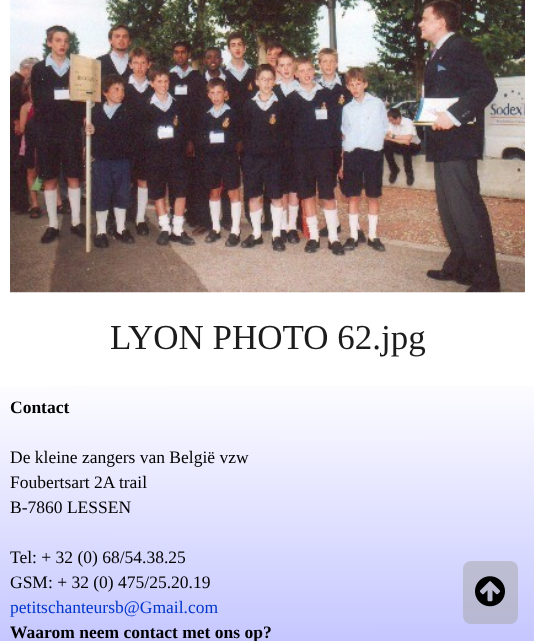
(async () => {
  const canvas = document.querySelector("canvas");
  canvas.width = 534;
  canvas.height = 641;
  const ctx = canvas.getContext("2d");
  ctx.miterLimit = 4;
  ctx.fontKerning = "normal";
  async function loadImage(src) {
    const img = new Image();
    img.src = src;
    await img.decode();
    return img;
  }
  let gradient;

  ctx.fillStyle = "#ffffff";
  ctx.fillRect(0, 0, 534, 641);
  ctx.drawImage(await loadImage("img/1.png"), 10, 0, 515, 293);
  gradient = ctx.createLinearGradient(267, 375, 268, 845);
  gradient.addColorStop(0, "#ffffff");
  gradient.addColorStop(1, "#999bff");
  ctx.fillStyle = gradient;
  ctx.fillRect(0, 386, 534, 255);
  ctx.fillStyle = "rgba(165, 165, 165, 0.5)";
  ctx.beginPath();
  ctx.roundRect(463, 561, 55, 63, 8);
  ctx.fill();
  ctx.drawImage(await loadImage("img/2.png"), 475, 576, 30, 31);
  ctx.font = "35px Liberation Serif";
  ctx.fillStyle = "#1c1c1c";
  ctx.fillText("LYON PHOTO 62.jpg", 110, 349);
  ctx.font = "bold 17.5px Liberation Serif";
  ctx.fillStyle = "#000000";
  ctx.fillText("Contact", 10, 413);
  ctx.font = "17.5px Liberation Serif";
  for (const [text, x, y] of [
    ["De kleine zangers van België vzw", 10, 463],
    ["Foubertsart 2A trail", 10, 488],
    ["B-7860 LESSEN", 10, 513],
    ["Tel: + 32 (0) 68/54.38.25", 10, 563],
    ["GSM: + 32 (0) 475/25.20.19", 10, 588],
  ]) {
    ctx.fillText(text, x, y);
  }
  ctx.fillStyle = "#0036cc";
  ctx.fillText("petitschanteursb@Gmail.com", 10, 613);
  ctx.font = "bold 17.5px Liberation Serif";
  ctx.fillStyle = "#000000";
  ctx.fillText("Waarom neem contact met ons op?", 10, 638);
})();
